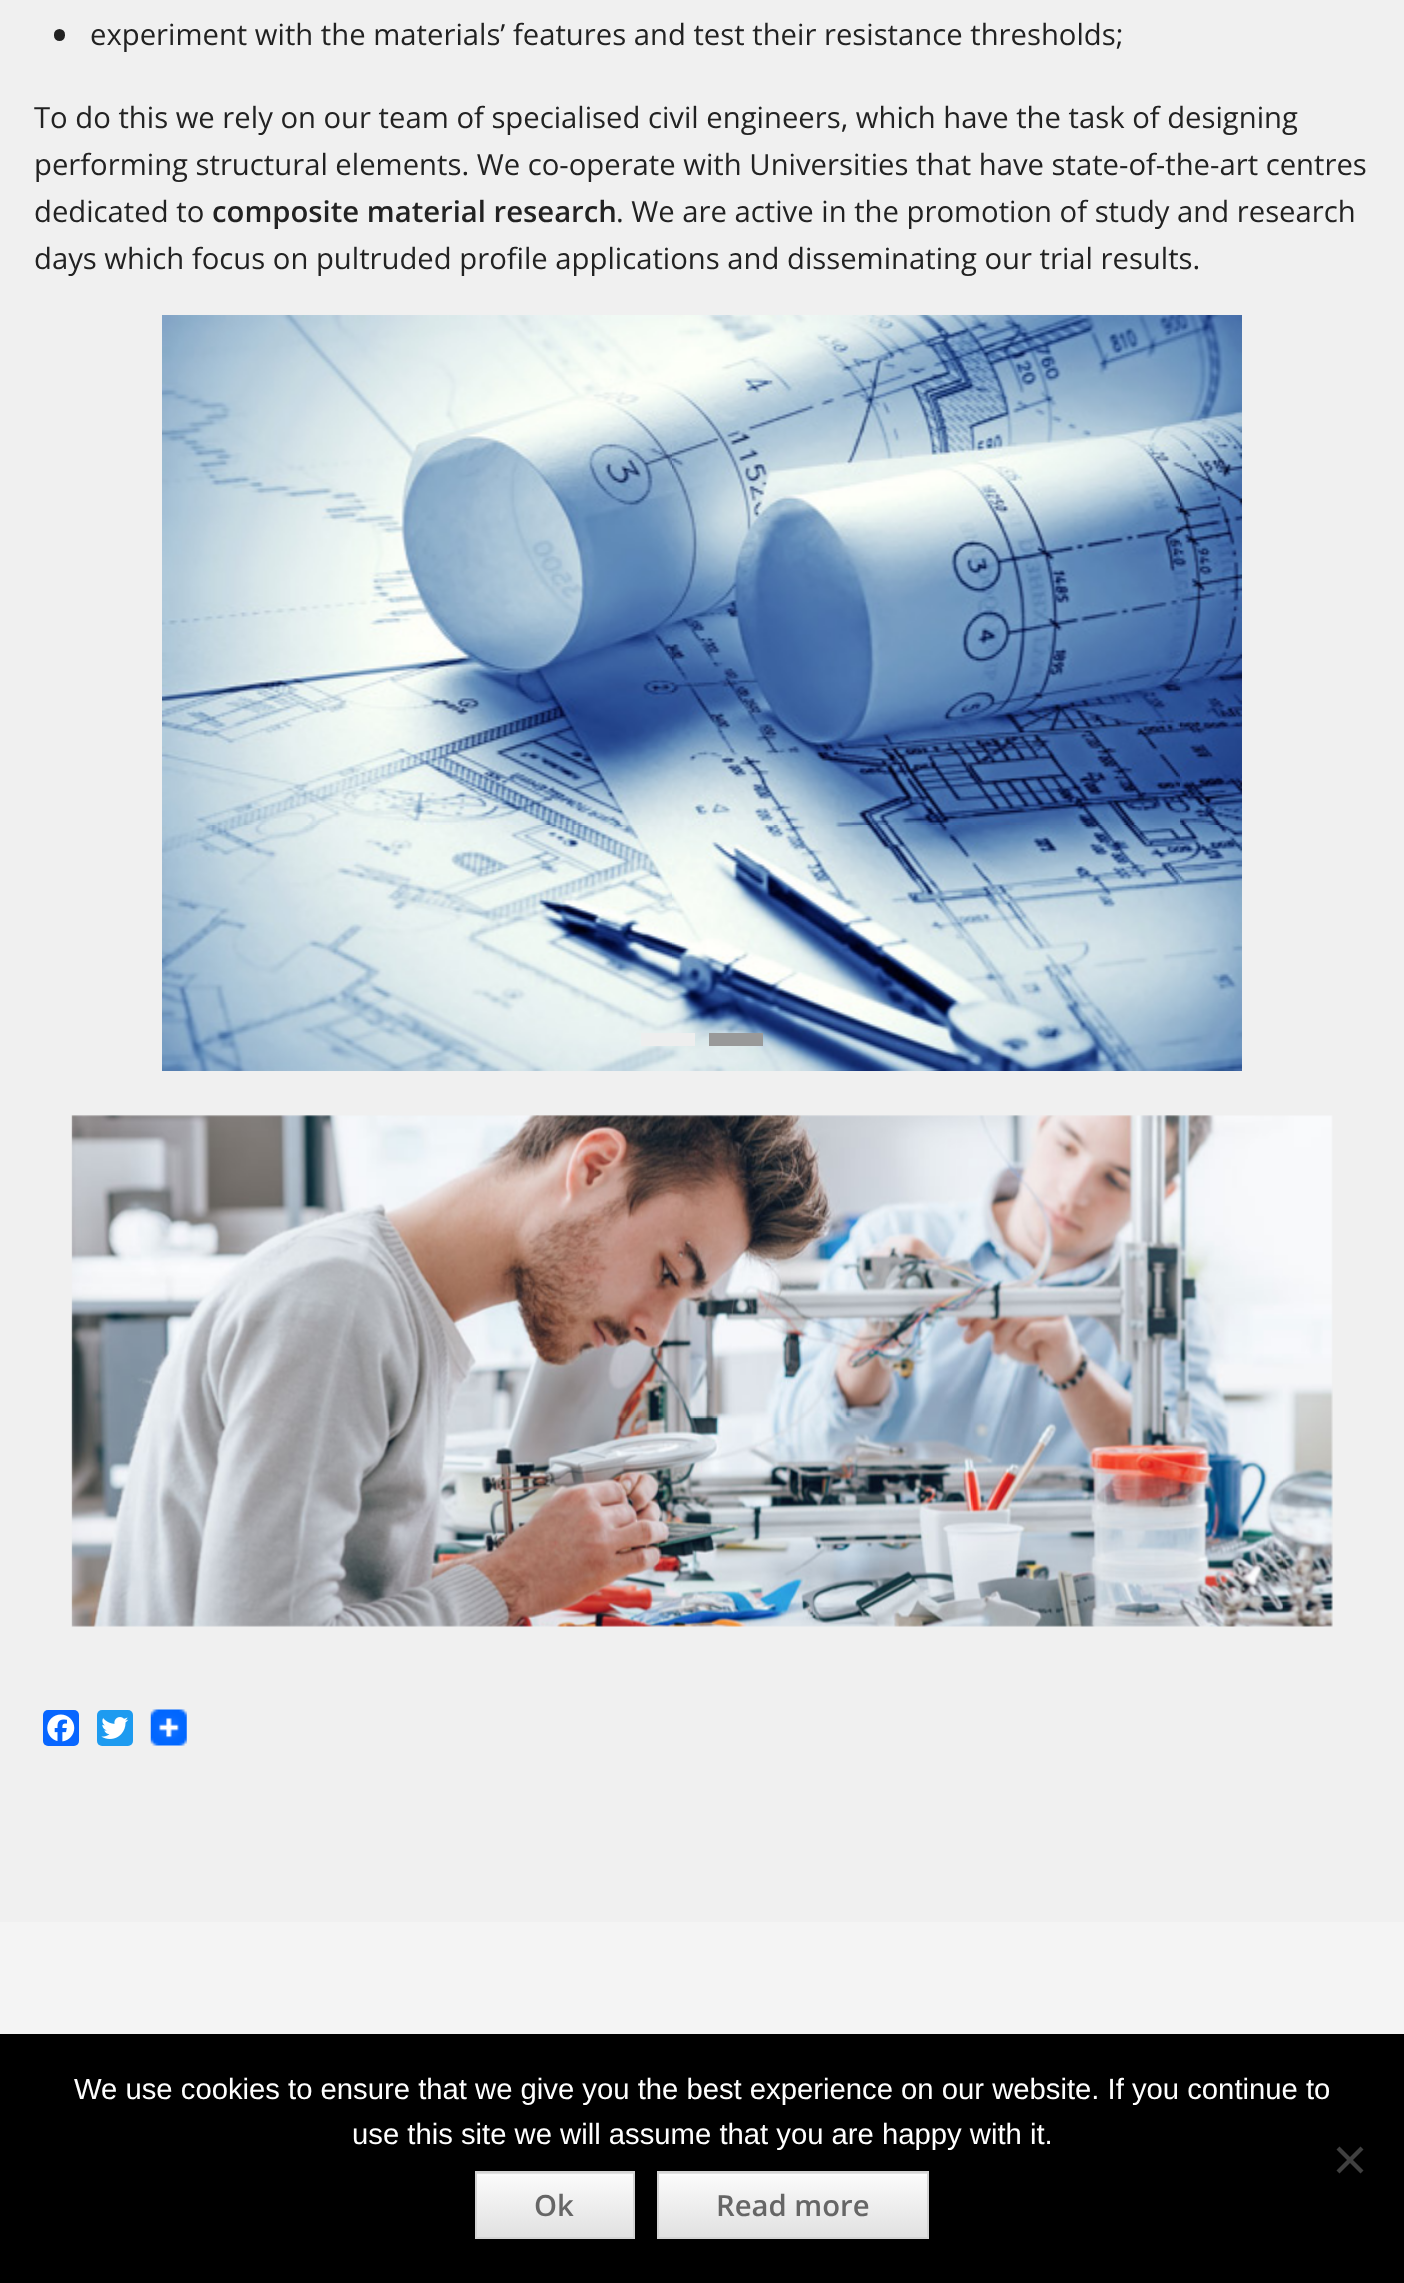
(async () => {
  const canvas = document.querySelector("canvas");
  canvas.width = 1404;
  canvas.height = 2283;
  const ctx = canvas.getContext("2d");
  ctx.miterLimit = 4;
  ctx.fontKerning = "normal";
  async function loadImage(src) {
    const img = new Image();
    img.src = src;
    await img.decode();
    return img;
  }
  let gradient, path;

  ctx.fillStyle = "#f0f0f0";
  ctx.fillRect(0, 0, 1404, 2283);
  ctx.fillStyle = "#222222";
  ctx.beginPath();
  ctx.roundRect(54, 29, 11, 12, 5.5);
  ctx.fill();
  ctx.drawImage(await loadImage("img/1.png"), 162, 315, 1080, 756);
  ctx.fillStyle = "#eeeeee";
  ctx.fillRect(641, 1033, 54, 13);
  ctx.fillStyle = "#999999";
  ctx.fillRect(709, 1033, 54, 13);
  ctx.drawImage(await loadImage("img/2.png"), 71, 1115, 1262, 512);
  ctx.fillStyle = "#0866ff";
  ctx.beginPath();
  ctx.roundRect(43, 1710, 36, 36, 5);
  ctx.fill();
  ctx.drawImage(await loadImage("img/3.png"), 47, 1714, 28, 28);
  ctx.fillStyle = "#1d9bf0";
  ctx.beginPath();
  ctx.roundRect(97, 1710, 36, 36, 5);
  ctx.fill();
  ctx.drawImage(await loadImage("img/4.png"), 101, 1717, 28, 22);
  ctx.drawImage(await loadImage("img/5.png"), 150, 1709, 37, 37);
  ctx.fillStyle = "#f4f4f4";
  ctx.fillRect(0, 1922, 1404, 112);
  ctx.fillStyle = "#000000";
  ctx.fillRect(0, 2034, 1404, 249);
  ctx.fillStyle = "#404040";
  path = new Path2D("M1360.5 2146.5L1363.5 2149.5L1339.5 2173.5L1336.5 2170.5Z");
  ctx.fill(path);
  path = new Path2D("M1336.5 2149.5L1339.5 2146.5L1363.5 2170.5L1360.5 2173.5Z");
  ctx.fill(path);
  gradient = ctx.createLinearGradient(555, 2111, 555, 2174);
  gradient.addColorStop(0, "#fbfbfb");
  gradient.addColorStop(1, "#e1e1e1");
  ctx.fillStyle = gradient;
  ctx.fillRect(475, 2173, 160, 1);
  gradient = ctx.createLinearGradient(555, 2174, 555, 2237);
  gradient.addColorStop(0, "#fbfbfb");
  gradient.addColorStop(1, "#e1e1e1");
  ctx.fillStyle = gradient;
  ctx.fillRect(477, 2174, 156, 63);
  ctx.fillStyle = "#fdfdfd";
  ctx.fillRect(477, 2175, 155, 1);
  ctx.strokeStyle = "#d4d4d4";
  ctx.lineWidth = 2;
  ctx.strokeRect(476, 2172, 158, 66);
  gradient = ctx.createLinearGradient(793, 2111, 793, 2174);
  gradient.addColorStop(0, "#fbfbfb");
  gradient.addColorStop(1, "#e1e1e1");
  ctx.fillStyle = gradient;
  ctx.fillRect(657, 2173, 272, 1);
  gradient = ctx.createLinearGradient(793, 2174, 793, 2237);
  gradient.addColorStop(0, "#fbfbfb");
  gradient.addColorStop(1, "#e1e1e1");
  ctx.fillStyle = gradient;
  ctx.fillRect(659, 2176, 268, 61);
  ctx.fillStyle = "#fdfdfd";
  ctx.fillRect(659, 2174, 268, 2);
  ctx.strokeRect(658, 2172, 270, 66);
  ctx.font = "29.25px Open Sans";
  ctx.fillStyle = "#222222";
  for (const [text, x, y] of [
    ["experiment with the materials’ features and test their resistance thresholds;", 90, 45],
    ["To do this we rely on our team of specialised civil engineers, which have the task of designing", 34, 128],
    ["performing structural elements. We co-operate with Universities that have state-of-the-art centres", 34, 175],
    ["dedicated to", 34, 222],
  ]) {
    ctx.fillText(text, x, y);
  }
  ctx.font = "600 29.25px Open Sans";
  ctx.fillText("composite material research", 212, 222);
  ctx.font = "29.25px Open Sans";
  ctx.fillText(". We are active in the promotion of study and research", 616, 222);
  ctx.fillText("days which focus on pultruded profile applications and disseminating our trial results.", 34, 269);
  ctx.font = "29.25px Liberation Sans";
  ctx.fillStyle = "#ffffff";
  ctx.fillText("We use cookies to ensure that we give you the best experience on our website. If you continue to", 74, 2099);
  ctx.fillText("use this site we will assume that you are happy with it.", 352, 2144);
  ctx.font = "600 29.25px Open Sans";
  ctx.fillStyle = "#666666";
  ctx.fillText("Ok", 534, 2216);
  ctx.fillText("Read more", 716, 2216);
})();
